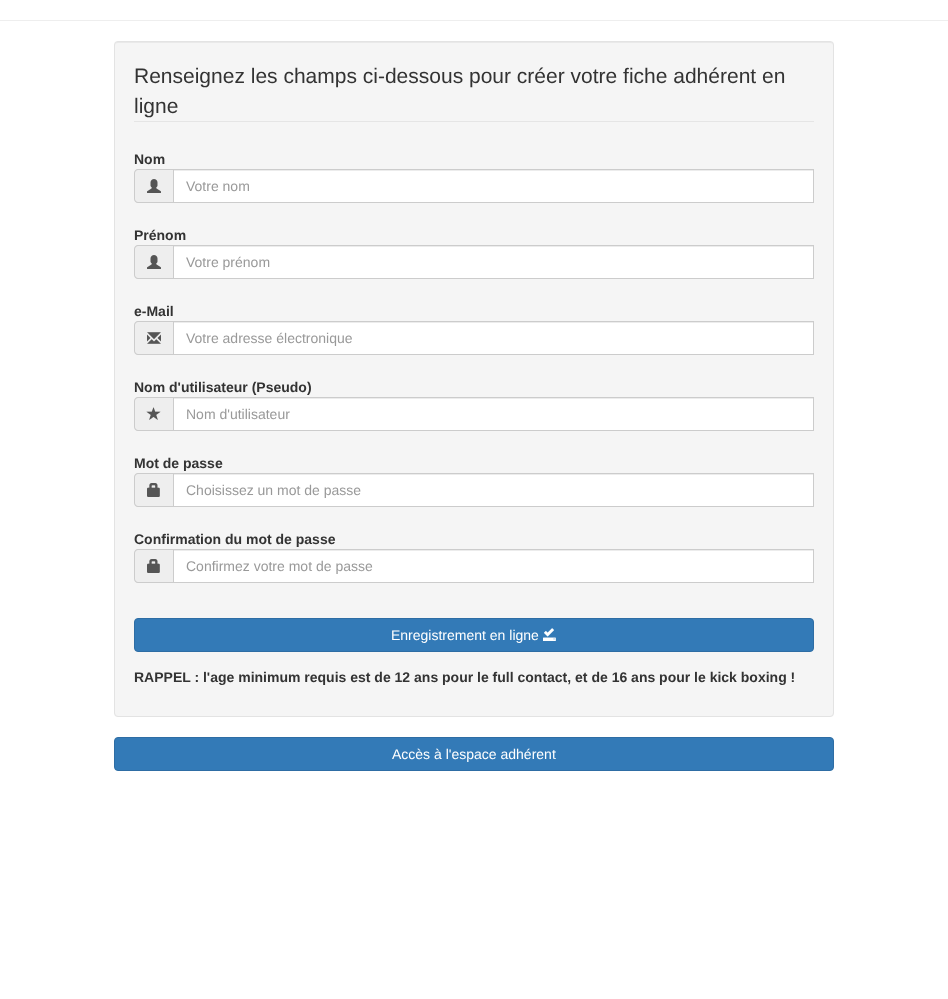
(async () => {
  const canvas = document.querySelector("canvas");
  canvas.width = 948;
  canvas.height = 999;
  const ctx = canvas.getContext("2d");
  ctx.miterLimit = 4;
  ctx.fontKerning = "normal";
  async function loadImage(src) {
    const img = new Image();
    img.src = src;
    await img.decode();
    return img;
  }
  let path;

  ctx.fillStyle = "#ffffff";
  ctx.fillRect(0, 0, 948, 999);
  ctx.fillStyle = "#eeeeee";
  ctx.fillRect(0, 20, 948, 1);
  ctx.fillStyle = "#f5f5f5";
  ctx.beginPath();
  ctx.roundRect(114, 41, 720, 676, 4);
  ctx.fill();
  ctx.fillStyle = "#e9e9e9";
  path = new Path2D("M118 43H830C832 43 833 44 833 46C833 44 832 42 830 42H118C116 42 115 44 115 46C115 44 116 43 118 43Z");
  ctx.fill(path);
  ctx.beginPath();
  ctx.roundRect(114.5, 41.5, 719, 675, 3.5);
  ctx.strokeStyle = "#e3e3e3";
  ctx.stroke();
  ctx.fillStyle = "#e5e5e5";
  ctx.fillRect(134, 121, 680, 1);
  ctx.fillStyle = "#eeeeee";
  ctx.beginPath();
  ctx.roundRect(134, 169, 39, 34, [4, 0, 0, 4]);
  ctx.fill();
  ctx.fillStyle = "#cccccc";
  path = new Path2D("M138 169H173V203H138C136 203 134 201 134 199V173C134 171 136 169 138 169ZM138 170H173V202H138C136.5 202 135 200.5 135 199V173C135 171.5 136.5 170 138 170Z");
  ctx.fill(path, "evenodd");
  ctx.drawImage(await loadImage("img/1.png"), 147, 179, 14, 14);
  ctx.fillStyle = "#ffffff";
  ctx.fillRect(174, 171, 639, 31);
  ctx.fillStyle = "#ececec";
  ctx.fillRect(174, 170, 639, 1);
  ctx.strokeStyle = "#cccccc";
  ctx.strokeRect(173.5, 169.5, 640, 33);
  ctx.fillStyle = "#eeeeee";
  ctx.beginPath();
  ctx.roundRect(134, 245, 39, 34, [4, 0, 0, 4]);
  ctx.fill();
  ctx.fillStyle = "#cccccc";
  path = new Path2D("M138 245H173V279H138C136 279 134 277 134 275V249C134 247 136 245 138 245ZM138 246H173V278H138C136.5 278 135 276.5 135 275V249C135 247.5 136.5 246 138 246Z");
  ctx.fill(path, "evenodd");
  ctx.drawImage(await loadImage("img/1.png"), 147, 255, 14, 14);
  ctx.fillStyle = "#ffffff";
  ctx.fillRect(174, 247, 639, 31);
  ctx.fillStyle = "#ececec";
  ctx.fillRect(174, 246, 639, 1);
  ctx.strokeRect(173.5, 245.5, 640, 33);
  ctx.fillStyle = "#eeeeee";
  ctx.beginPath();
  ctx.roundRect(134, 321, 39, 34, [4, 0, 0, 4]);
  ctx.fill();
  ctx.fillStyle = "#cccccc";
  path = new Path2D("M138 321H173V355H138C136 355 134 353 134 351V325C134 323 136 321 138 321ZM138 322H173V354H138C136.5 354 135 352.5 135 351V325C135 323.5 136.5 322 138 322Z");
  ctx.fill(path, "evenodd");
  ctx.drawImage(await loadImage("img/2.png"), 147, 332, 14, 12);
  ctx.fillStyle = "#ffffff";
  ctx.fillRect(174, 323, 639, 31);
  ctx.fillStyle = "#ececec";
  ctx.fillRect(174, 322, 639, 1);
  ctx.strokeRect(173.5, 321.5, 640, 33);
  ctx.fillStyle = "#eeeeee";
  ctx.beginPath();
  ctx.roundRect(134, 397, 39, 34, [4, 0, 0, 4]);
  ctx.fill();
  ctx.fillStyle = "#cccccc";
  path = new Path2D("M138 397H173V431H138C136 431 134 429 134 427V401C134 399 136 397 138 397ZM138 398H173V430H138C136.5 430 135 428.5 135 427V401C135 399.5 136.5 398 138 398Z");
  ctx.fill(path, "evenodd");
  ctx.drawImage(await loadImage("img/3.png"), 146, 407, 15, 13);
  ctx.fillStyle = "#ffffff";
  ctx.fillRect(174, 399, 639, 31);
  ctx.fillStyle = "#ececec";
  ctx.fillRect(174, 398, 639, 1);
  ctx.strokeRect(173.5, 397.5, 640, 33);
  ctx.fillStyle = "#eeeeee";
  ctx.beginPath();
  ctx.roundRect(134, 473, 39, 34, [4, 0, 0, 4]);
  ctx.fill();
  ctx.fillStyle = "#cccccc";
  path = new Path2D("M138 473H173V507H138C136 507 134 505 134 503V477C134 475 136 473 138 473ZM138 474H173V506H138C136.5 506 135 504.5 135 503V477C135 475.5 136.5 474 138 474Z");
  ctx.fill(path, "evenodd");
  ctx.drawImage(await loadImage("img/4.png"), 147, 483, 13, 14);
  ctx.fillStyle = "#ffffff";
  ctx.fillRect(174, 475, 639, 31);
  ctx.fillStyle = "#ececec";
  ctx.fillRect(174, 474, 639, 1);
  ctx.strokeRect(173.5, 473.5, 640, 33);
  ctx.fillStyle = "#eeeeee";
  ctx.beginPath();
  ctx.roundRect(134, 549, 39, 34, [4, 0, 0, 4]);
  ctx.fill();
  ctx.fillStyle = "#cccccc";
  path = new Path2D("M138 549H173V583H138C136 583 134 581 134 579V553C134 551 136 549 138 549ZM138 550H173V582H138C136.5 582 135 580.5 135 579V553C135 551.5 136.5 550 138 550Z");
  ctx.fill(path, "evenodd");
  ctx.drawImage(await loadImage("img/4.png"), 147, 559, 13, 14);
  ctx.fillStyle = "#ffffff";
  ctx.fillRect(174, 551, 639, 31);
  ctx.fillStyle = "#ececec";
  ctx.fillRect(174, 550, 639, 1);
  ctx.strokeRect(173.5, 549.5, 640, 33);
  ctx.fillStyle = "#337ab7";
  ctx.beginPath();
  ctx.roundRect(134.5, 618.5, 679, 33, 3.5);
  ctx.fill();
  ctx.strokeStyle = "#2e6da4";
  ctx.stroke();
  ctx.drawImage(await loadImage("img/5.png"), 543, 628, 13, 13);
  ctx.beginPath();
  ctx.roundRect(114.5, 737.5, 719, 33, 3.5);
  ctx.fill();
  ctx.stroke();
  ctx.font = "21px Liberation Sans";
  ctx.fillStyle = "#333333";
  ctx.fillText("Renseignez les champs ci-dessous pour créer votre fiche adhérent en", 134, 83);
  ctx.fillText("ligne", 134, 113);
  ctx.font = "bold 14px Liberation Sans";
  ctx.fillText("Nom", 134, 164);
  ctx.font = "14px Liberation Sans";
  ctx.fillStyle = "#999999";
  ctx.fillText("Votre nom", 186, 191);
  ctx.font = "bold 14px Liberation Sans";
  ctx.fillStyle = "#333333";
  ctx.fillText("Prénom", 134, 240);
  ctx.font = "14px Liberation Sans";
  ctx.fillStyle = "#999999";
  ctx.fillText("Votre prénom", 186, 267);
  ctx.font = "bold 14px Liberation Sans";
  ctx.fillStyle = "#333333";
  ctx.fillText("e-Mail", 134, 316);
  ctx.font = "14px Liberation Sans";
  ctx.fillStyle = "#999999";
  ctx.fillText("Votre adresse électronique", 186, 343);
  ctx.font = "bold 14px Liberation Sans";
  ctx.fillStyle = "#333333";
  ctx.fillText("Nom d'utilisateur (Pseudo)", 134, 392);
  ctx.font = "14px Liberation Sans";
  ctx.fillStyle = "#999999";
  ctx.fillText("Nom d'utilisateur", 186, 419);
  ctx.font = "bold 14px Liberation Sans";
  ctx.fillStyle = "#333333";
  ctx.fillText("Mot de passe", 134, 468);
  ctx.font = "14px Liberation Sans";
  ctx.fillStyle = "#999999";
  ctx.fillText("Choisissez un mot de passe", 186, 495);
  ctx.font = "bold 14px Liberation Sans";
  ctx.fillStyle = "#333333";
  ctx.fillText("Confirmation du mot de passe", 134, 544);
  ctx.font = "14px Liberation Sans";
  ctx.fillStyle = "#999999";
  ctx.fillText("Confirmez votre mot de passe", 186, 571);
  ctx.fillStyle = "#ffffff";
  ctx.fillText("Enregistrement en ligne", 391, 640);
  ctx.font = "bold 14px Liberation Sans";
  ctx.fillStyle = "#333333";
  ctx.fillText("RAPPEL : l'age minimum requis est de 12 ans pour le full contact, et de 16 ans pour le kick boxing !", 134, 682);
  ctx.font = "14px Liberation Sans";
  ctx.fillStyle = "#ffffff";
  ctx.fillText("Accès à l'espace adhérent", 392, 759);
})();
